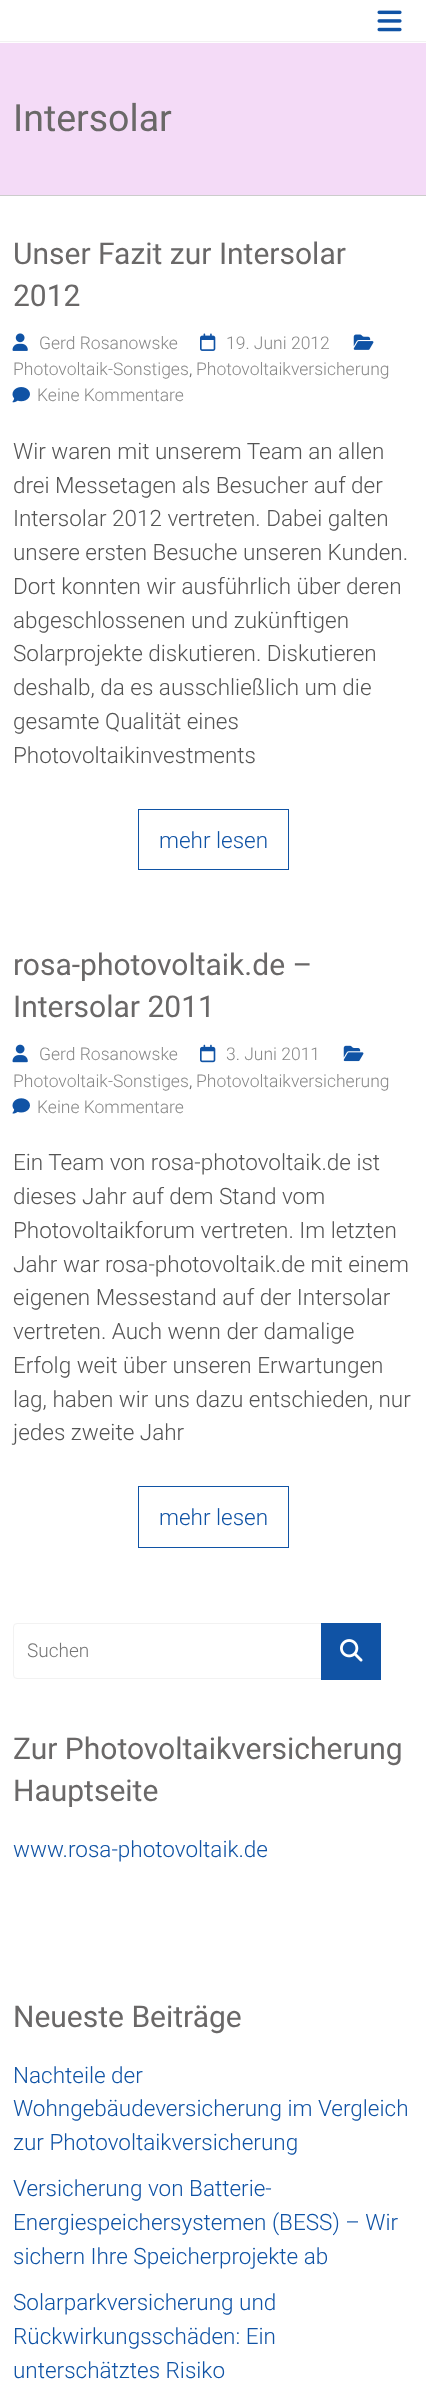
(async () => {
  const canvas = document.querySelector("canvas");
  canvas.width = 426;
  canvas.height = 2381;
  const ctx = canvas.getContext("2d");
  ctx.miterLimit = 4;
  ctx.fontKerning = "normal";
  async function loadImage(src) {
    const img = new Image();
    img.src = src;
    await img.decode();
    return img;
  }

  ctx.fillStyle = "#ffffff";
  ctx.fillRect(0, 0, 426, 2381);
  ctx.fillStyle = "#f2f2f2";
  ctx.fillRect(0, 41, 426, 1);
  ctx.drawImage(await loadImage("img/1.png"), 377, 10, 25, 22);
  ctx.fillStyle = "#f4dbf7";
  ctx.fillRect(0, 43, 426, 152);
  ctx.fillStyle = "#cccccc";
  ctx.fillRect(0, 195, 426, 1);
  ctx.drawImage(await loadImage("img/2.png"), 12, 333, 16, 18);
  ctx.drawImage(await loadImage("img/3.png"), 200, 333, 16, 18);
  ctx.drawImage(await loadImage("img/4.png"), 353, 334, 21, 16);
  ctx.drawImage(await loadImage("img/5.png"), 12, 387, 18, 16);
  ctx.strokeStyle = "#1053a5";
  ctx.strokeRect(138.5, 809.5, 150, 60);
  ctx.drawImage(await loadImage("img/6.png"), 12, 1044, 16, 19);
  ctx.drawImage(await loadImage("img/7.png"), 200, 1044, 16, 19);
  ctx.drawImage(await loadImage("img/8.png"), 343, 1045, 21, 17);
  ctx.drawImage(await loadImage("img/9.png"), 12, 1098, 18, 16);
  ctx.strokeRect(138.5, 1486.5, 150, 61);
  ctx.beginPath();
  ctx.roundRect(13.5, 1623.5, 360, 55, 3.5);
  ctx.strokeStyle = "#f2f2f2";
  ctx.stroke();
  ctx.fillStyle = "#1053a5";
  ctx.fillRect(321, 1623, 60, 57);
  ctx.drawImage(await loadImage("img/10.png"), 340, 1639, 23, 23);
  ctx.font = "37.5px Roboto";
  ctx.fillStyle = "#6a6868";
  ctx.fillText("Intersolar", 13, 131);
  ctx.font = "30px Roboto";
  ctx.fillText("Unser Fazit zur Intersolar", 13, 264);
  ctx.fillText("2012", 13, 306);
  ctx.font = "300 17.5px Roboto";
  ctx.fillStyle = "#888888";
  for (const [text, x, y] of [
    ["Gerd Rosanowske", 39, 349],
    ["19. Juni 2012", 226, 349],
    ["Photovoltaik-Sonstiges", 13, 375],
  ]) {
    ctx.fillText(text, x, y);
  }
  ctx.fillStyle = "#545454";
  ctx.fillText(",", 189, 375);
  ctx.fillStyle = "#888888";
  ctx.fillText("Photovoltaikversicherung", 196, 375);
  ctx.fillText("Keine Kommentare", 37, 401);
  ctx.font = "300 22.5px Roboto";
  ctx.fillStyle = "#545454";
  for (const [text, x, y] of [
    ["Wir waren mit unserem Team an allen", 13, 459],
    ["drei Messetagen als Besucher auf der", 13, 493],
    ["Intersolar 2012 vertreten. Dabei galten", 13, 526],
    ["unsere ersten Besuche unseren Kunden.", 13, 560],
    ["Dort konnten wir ausführlich über deren", 13, 594],
    ["abgeschlossenen und zukünftigen", 13, 628],
    ["Solarprojekte diskutieren. Diskutieren", 13, 661],
    ["deshalb, da es ausschließlich um die", 13, 695],
    ["gesamte Qualität eines", 13, 729],
    ["Photovoltaikinvestments", 13, 763],
  ]) {
    ctx.fillText(text, x, y);
  }
  ctx.fillStyle = "#1053a5";
  ctx.fillText("mehr lesen", 159, 848);
  ctx.font = "30px Roboto";
  ctx.fillStyle = "#6a6868";
  ctx.fillText("rosa-photovoltaik.de –", 13, 975);
  ctx.fillText("Intersolar 2011", 13, 1017);
  ctx.font = "300 17.5px Roboto";
  ctx.fillStyle = "#888888";
  for (const [text, x, y] of [
    ["Gerd Rosanowske", 39, 1060],
    ["3. Juni 2011", 226, 1060],
    ["Photovoltaik-Sonstiges", 13, 1087],
  ]) {
    ctx.fillText(text, x, y);
  }
  ctx.fillStyle = "#545454";
  ctx.fillText(",", 189, 1087);
  ctx.fillStyle = "#888888";
  ctx.fillText("Photovoltaikversicherung", 196, 1087);
  ctx.fillText("Keine Kommentare", 37, 1113);
  ctx.font = "300 22.5px Roboto";
  ctx.fillStyle = "#545454";
  for (const [text, x, y] of [
    ["Ein Team von rosa-photovoltaik.de ist", 13, 1170],
    ["dieses Jahr auf dem Stand vom", 13, 1204],
    ["Photovoltaikforum vertreten. Im letzten", 13, 1238],
    ["Jahr war rosa-photovoltaik.de mit einem", 13, 1272],
    ["eigenen Messestand auf der Intersolar", 13, 1305],
    ["vertreten. Auch wenn der damalige", 13, 1339],
    ["Erfolg weit über unseren Erwartungen", 13, 1373],
    ["lag, haben wir uns dazu entschieden, nur", 13, 1407],
    ["jedes zweite Jahr", 13, 1440],
  ]) {
    ctx.fillText(text, x, y);
  }
  ctx.fillStyle = "#1053a5";
  ctx.fillText("mehr lesen", 159, 1525);
  ctx.font = "300 19px Roboto";
  ctx.fillStyle = "#757575";
  ctx.fillText("Suchen", 27, 1657);
  ctx.font = "30px Roboto";
  ctx.fillStyle = "#6a6868";
  ctx.fillText("Zur Photovoltaikversicherung", 13, 1759);
  ctx.fillText("Hauptseite", 13, 1801);
  ctx.font = "300 22.5px Roboto";
  ctx.fillStyle = "#1053a5";
  ctx.fillText("www.rosa-photovoltaik.de", 13, 1857);
  ctx.font = "30px Roboto";
  ctx.fillStyle = "#6a6868";
  ctx.fillText("Neueste Beiträge", 13, 2027);
  ctx.font = "300 22.5px Roboto";
  ctx.fillStyle = "#1053a5";
  for (const [text, x, y] of [
    ["Nachteile der", 13, 2083],
    ["Wohngebäudeversicherung im Vergleich", 13, 2116],
    ["zur Photovoltaikversicherung", 13, 2150],
    ["Versicherung von Batterie-", 13, 2196],
    ["Energiespeichersystemen (BESS) – Wir", 13, 2230],
    ["sichern Ihre Speicherprojekte ab", 13, 2264],
    ["Solarparkversicherung und", 13, 2310],
    ["Rückwirkungsschäden: Ein", 13, 2344],
    ["unterschätztes Risiko", 13, 2378],
  ]) {
    ctx.fillText(text, x, y);
  }
})();
